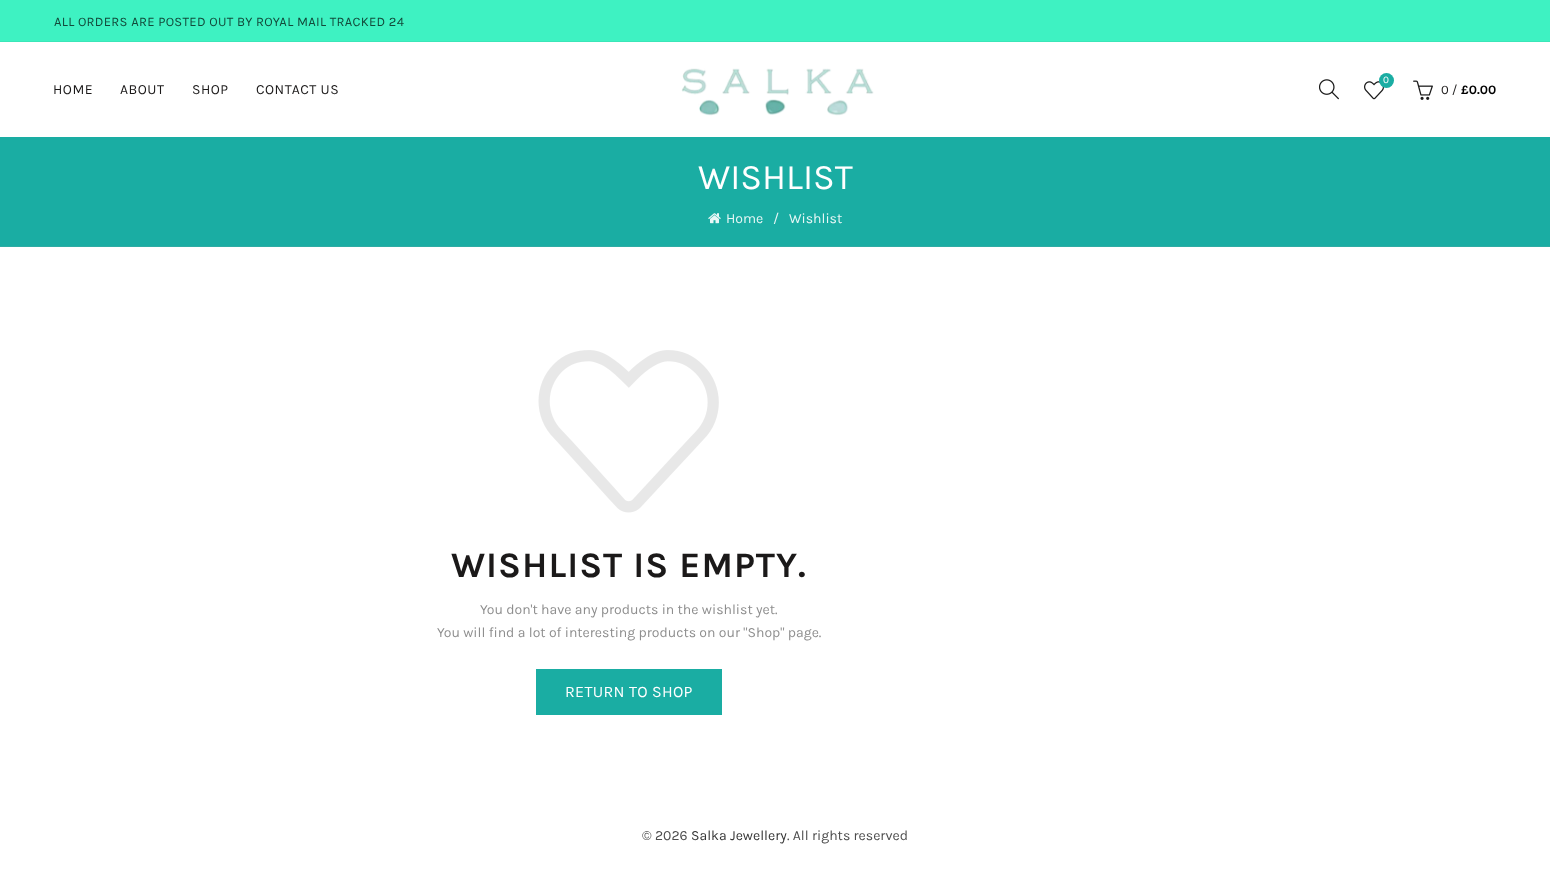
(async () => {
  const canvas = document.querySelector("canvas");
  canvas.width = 1550;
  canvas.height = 874;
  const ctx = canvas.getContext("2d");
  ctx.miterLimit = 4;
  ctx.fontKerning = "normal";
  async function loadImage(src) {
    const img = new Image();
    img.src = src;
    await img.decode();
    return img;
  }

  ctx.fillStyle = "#ffffff";
  ctx.fillRect(0, 0, 1550, 874);
  ctx.fillStyle = "#3ef2c2";
  ctx.fillRect(0, 0, 1550, 41);
  ctx.fillStyle = "#3be6b8";
  ctx.fillRect(0, 41, 1550, 1);
  ctx.drawImage(await loadImage("img/1.png"), 681, 68, 193, 48);
  ctx.drawImage(await loadImage("img/2.png"), 1319, 79, 20, 21);
  ctx.drawImage(await loadImage("img/3.png"), 1364, 81, 20, 19);
  ctx.fillStyle = "#1aada3";
  ctx.beginPath();
  ctx.arc(1386.5, 80.5, 7.5, 0, Math.PI * 2);
  ctx.fill();
  ctx.drawImage(await loadImage("img/4.png"), 1413, 80, 20, 20);
  ctx.fillRect(0, 137, 1550, 109);
  ctx.fillStyle = "#2faca4";
  ctx.fillRect(0, 246, 1550, 1);
  ctx.drawImage(await loadImage("img/5.png"), 708, 213, 13, 11);
  ctx.drawImage(await loadImage("img/6.png"), 538, 350, 181, 163);
  ctx.fillStyle = "#1aada3";
  ctx.fillRect(536, 669, 186, 46);
  ctx.letterSpacing = "0.3px";
  ctx.font = "13px Karla";
  ctx.fillStyle = "#13493a";
  ctx.fillText("ALL ORDERS ARE POSTED OUT BY ROYAL MAIL TRACKED 24", 54, 26);
  ctx.letterSpacing = "0.5px";
  ctx.font = "14px Karla";
  ctx.fillStyle = "#1b1919";
  for (const [text, x, y] of [
    ["HOME", 53, 94],
    ["ABOUT", 120, 94],
    ["SHOP", 192, 94],
    ["CONTACT US", 256, 94],
  ]) {
    ctx.fillText(text, x, y);
  }
  ctx.letterSpacing = "0px";
  ctx.font = "10px Karla";
  ctx.fillStyle = "#ffffff";
  ctx.fillText("0", 1383, 83);
  ctx.font = "13px Karla";
  ctx.fillStyle = "#1b1919";
  ctx.fillText("0 /", 1441, 94);
  ctx.font = "bold 13px Karla";
  ctx.fillStyle = "#000000";
  ctx.fillText("£0.00", 1461, 94);
  ctx.font = "36px Karla";
  ctx.fillStyle = "#ffffff";
  ctx.fillText("WISHLIST", 698, 189);
  ctx.font = "14px Karla";
  ctx.fillStyle = "#e8f7f6";
  for (const [text, x, y] of [
    ["Home", 726, 223],
    ["/", 773, 223],
    ["Wishlist", 789, 223],
  ]) {
    ctx.fillText(text, x, y);
  }
  ctx.letterSpacing = "1px";
  ctx.font = "bold 36px Karla";
  ctx.fillStyle = "#1b1919";
  ctx.fillText("WISHLIST IS EMPTY.", 451, 577);
  ctx.letterSpacing = "0px";
  ctx.font = "14px Karla";
  ctx.fillStyle = "#8e8e8e";
  ctx.fillText("You don't have any products in the wishlist yet.", 480, 614);
  ctx.fillText("You will find a lot of interesting products on our \"Shop\" page.", 437, 637);
  ctx.letterSpacing = "0.3px";
  ctx.font = "16px Karla";
  ctx.fillStyle = "#ffffff";
  ctx.fillText("RETURN TO SHOP", 565, 697);
  ctx.letterSpacing = "0px";
  ctx.font = "14px Karla";
  ctx.fillStyle = "#4d4d4d";
  ctx.fillText("© 2026", 642, 840);
  ctx.fillStyle = "#333333";
  ctx.fillText("Salka Jewellery", 691, 840);
  ctx.fillStyle = "#4d4d4d";
  ctx.fillText(". All rights reserved", 787, 840);
})();
